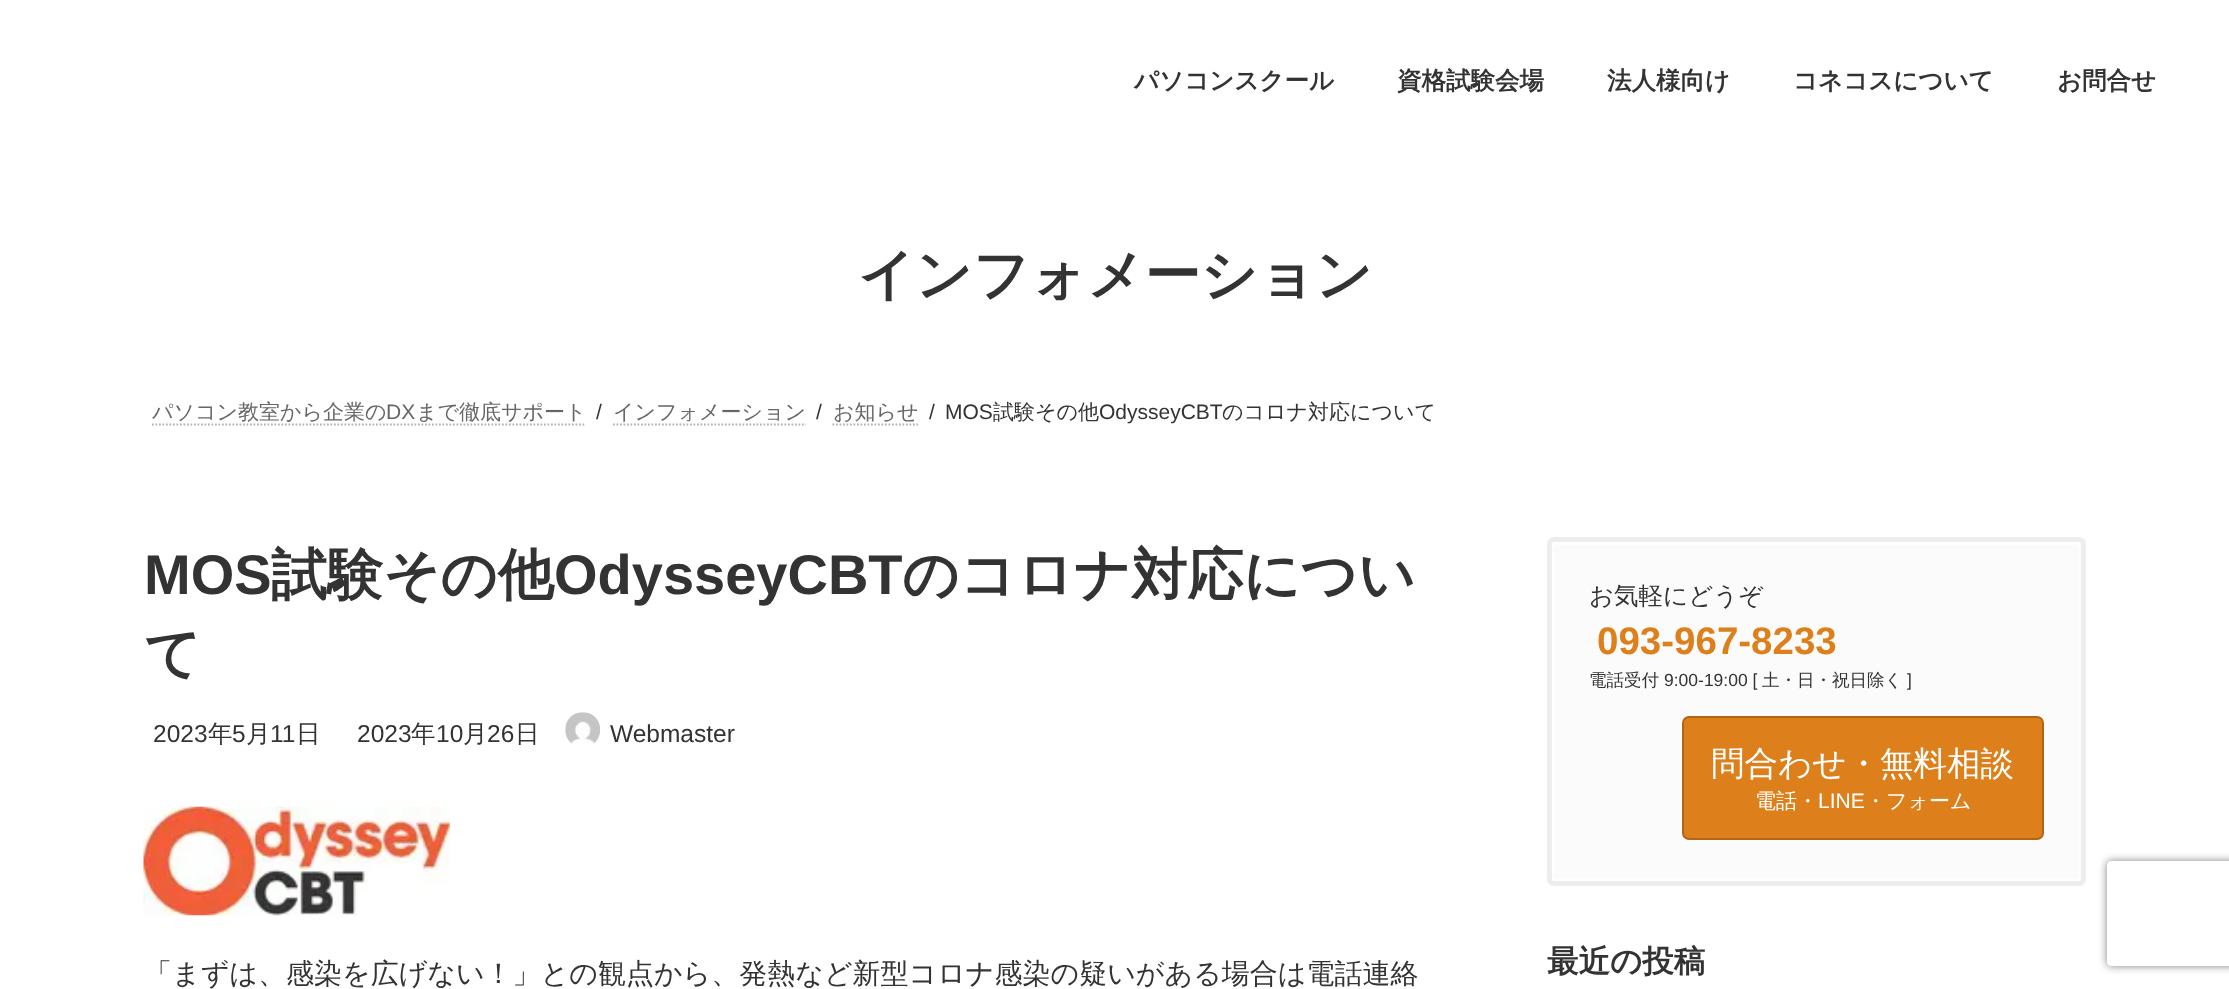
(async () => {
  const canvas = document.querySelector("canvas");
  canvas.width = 2229;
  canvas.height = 989;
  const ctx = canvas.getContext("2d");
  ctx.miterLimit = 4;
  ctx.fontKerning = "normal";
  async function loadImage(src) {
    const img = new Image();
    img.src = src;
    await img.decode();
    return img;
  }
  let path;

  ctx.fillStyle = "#ffffff";
  ctx.fillRect(0, 0, 2229, 989);
  path = new Path2D("M152 424.5H586");
  ctx.strokeStyle = "#b3b3b3";
  ctx.lineWidth = 1.8;
  ctx.setLineDash([1.75, 1.75]);
  ctx.stroke(path);
  path = new Path2D("M613 424.5H806");
  ctx.stroke(path);
  path = new Path2D("M832.5 424.5H918");
  ctx.stroke(path);
  ctx.drawImage(await loadImage("img/1.png"), 565, 712, 35, 32);
  ctx.drawImage(await loadImage("img/2.png"), 143, 806, 307, 110);
  ctx.beginPath();
  ctx.roundRect(1549.5, 539.5, 534, 344, 4.5);
  ctx.strokeStyle = "#ededed";
  ctx.lineWidth = 5;
  ctx.setLineDash([]);
  ctx.stroke();
  ctx.fillStyle = "#fbfbfb";
  ctx.beginPath();
  ctx.roundRect(1552, 543, 529, 337, 2);
  ctx.fill();
  ctx.fillStyle = "#fefefe";
  path = new Path2D("M1554 543C1553 543 1552 544 1552 545V878C1552 879 1553 880 1554 880H2079C2080 880 2081 879 2081 878V545C2081 544 2080 543 2079 543ZM1554 545V878H2079V545Z");
  ctx.fill(path, "evenodd");
  ctx.fillStyle = "#dd801c";
  ctx.beginPath();
  ctx.roundRect(1683, 717, 360, 122, 6);
  ctx.fill();
  ctx.strokeStyle = "#b16616";
  ctx.lineWidth = 2;
  ctx.stroke();
  ctx.save();
  path = new Path2D("M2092 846H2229V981H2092ZM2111 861H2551C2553 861 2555 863 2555 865V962C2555 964 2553 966 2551 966H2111C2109 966 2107 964 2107 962V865C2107 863 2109 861 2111 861Z");
  ctx.clip(path, "evenodd");
  ctx.fillStyle = "#808080";
  ctx.filter = "blur(4.5px)";
  ctx.beginPath();
  ctx.roundRect(2107, 861, 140, 105, 4);
  ctx.fill();
  ctx.filter = "none";
  ctx.restore();
  ctx.font = "bold 24.5px WenQuanYi Zen Hei";
  ctx.fillStyle = "#333333";
  for (const [text, x, y] of [
    ["パソコンスクール", 1134, 89],
    ["資格試験会場", 1397, 89],
    ["法人様向け", 1607, 89],
    ["コネコスについて", 1793, 89],
    ["お問合せ", 2057, 89],
  ]) {
    ctx.fillText(text, x, y);
  }
  ctx.font = "bold 56px WenQuanYi Zen Hei";
  ctx.fillText("インフォメーション", 858, 294);
  ctx.font = "500 21px WenQuanYi Zen Hei";
  ctx.fillStyle = "#666666";
  ctx.fillText("パソコン教室から企業の", 152, 419);
  ctx.font = "21px Liberation Sans";
  ctx.fillText("DX", 386, 419);
  ctx.font = "500 21px WenQuanYi Zen Hei";
  ctx.fillText("まで徹底サポート", 416, 419);
  ctx.font = "21px Liberation Sans";
  ctx.fillStyle = "#333333";
  ctx.fillText("/", 596, 419);
  ctx.font = "500 21px WenQuanYi Zen Hei";
  ctx.fillStyle = "#666666";
  ctx.fillText("インフォメーション", 613, 419);
  ctx.font = "21px Liberation Sans";
  ctx.fillStyle = "#333333";
  ctx.fillText("/", 816, 419);
  ctx.font = "500 21px WenQuanYi Zen Hei";
  ctx.fillStyle = "#666666";
  ctx.fillText("お知らせ", 833, 419);
  ctx.font = "21px Liberation Sans";
  ctx.fillStyle = "#333333";
  ctx.fillText("/", 929, 419);
  ctx.fillText("MOS", 945, 419);
  ctx.font = "500 21px WenQuanYi Zen Hei";
  ctx.fillText("試験その他", 993, 419);
  ctx.font = "21px Liberation Sans";
  ctx.fillText("OdysseyCBT", 1099, 419);
  ctx.font = "500 21px WenQuanYi Zen Hei";
  ctx.fillText("のコロナ対応について", 1222, 419);
  ctx.font = "bold 56px Liberation Sans";
  ctx.fillText("MOS", 144, 594);
  ctx.font = "bold 56px WenQuanYi Zen Hei";
  ctx.fillText("試験その他", 271, 594);
  ctx.font = "bold 56px Liberation Sans";
  ctx.fillText("OdysseyCBT", 554, 594);
  ctx.font = "bold 56px WenQuanYi Zen Hei";
  ctx.fillText("のコロナ対応につい", 902, 594);
  ctx.fillText("て", 144, 673);
  ctx.font = "24.5px Liberation Sans";
  ctx.fillText("2023", 153, 742);
  ctx.font = "500 24.5px WenQuanYi Zen Hei";
  ctx.fillText("年", 208, 742);
  ctx.font = "24.5px Liberation Sans";
  ctx.fillText("5", 232, 742);
  ctx.font = "500 24.5px WenQuanYi Zen Hei";
  ctx.fillText("月", 246, 742);
  ctx.font = "24.5px Liberation Sans";
  ctx.fillText("11", 270, 742);
  ctx.font = "500 24.5px WenQuanYi Zen Hei";
  ctx.fillText("日", 296, 742);
  ctx.font = "24.5px Liberation Sans";
  ctx.fillText("2023", 357, 742);
  ctx.font = "500 24.5px WenQuanYi Zen Hei";
  ctx.fillText("年", 411, 742);
  ctx.font = "24.5px Liberation Sans";
  ctx.fillText("10", 436, 742);
  ctx.font = "500 24.5px WenQuanYi Zen Hei";
  ctx.fillText("月", 463, 742);
  ctx.font = "24.5px Liberation Sans";
  ctx.fillText("26", 487, 742);
  ctx.font = "500 24.5px WenQuanYi Zen Hei";
  ctx.fillText("日", 515, 742);
  ctx.font = "24.5px Liberation Sans";
  ctx.fillText("Webmaster", 610, 742);
  ctx.font = "500 28px WenQuanYi Zen Hei";
  ctx.fillText("「まずは、感染を広げない！」との観点から、発熱など新型コロナ感染の疑いがある場合は電話連絡", 144, 983);
  ctx.font = "500 24.5px WenQuanYi Zen Hei";
  ctx.fillText("お気軽にどうぞ", 1589, 604);
  ctx.font = "bold 38.5px Liberation Sans";
  ctx.fillStyle = "#dd801c";
  ctx.fillText("093-967-8233", 1597, 654);
  ctx.font = "500 17.5px WenQuanYi Zen Hei";
  ctx.fillStyle = "#333333";
  ctx.fillText("電話受付", 1589, 686);
  ctx.font = "17.5px Liberation Sans";
  ctx.fillText("9:00-19:00 [", 1664, 686);
  ctx.font = "500 17.5px WenQuanYi Zen Hei";
  ctx.fillText("土・日・祝日除く", 1762, 686);
  ctx.font = "17.5px Liberation Sans";
  ctx.fillText("]", 1907, 686);
  ctx.font = "500 33.5px WenQuanYi Zen Hei";
  ctx.fillStyle = "#ffffff";
  ctx.fillText("問合わせ・無料相談", 1711, 775);
  ctx.font = "500 21px WenQuanYi Zen Hei";
  ctx.fillText("電話・", 1755, 808);
  ctx.font = "21px Liberation Sans";
  ctx.fillText("LINE", 1818, 808);
  ctx.font = "500 21px WenQuanYi Zen Hei";
  ctx.fillText("・フォーム", 1865, 808);
  ctx.font = "bold 31.5px WenQuanYi Zen Hei";
  ctx.fillStyle = "#333333";
  ctx.fillText("最近の投稿", 1547, 972);
})();
